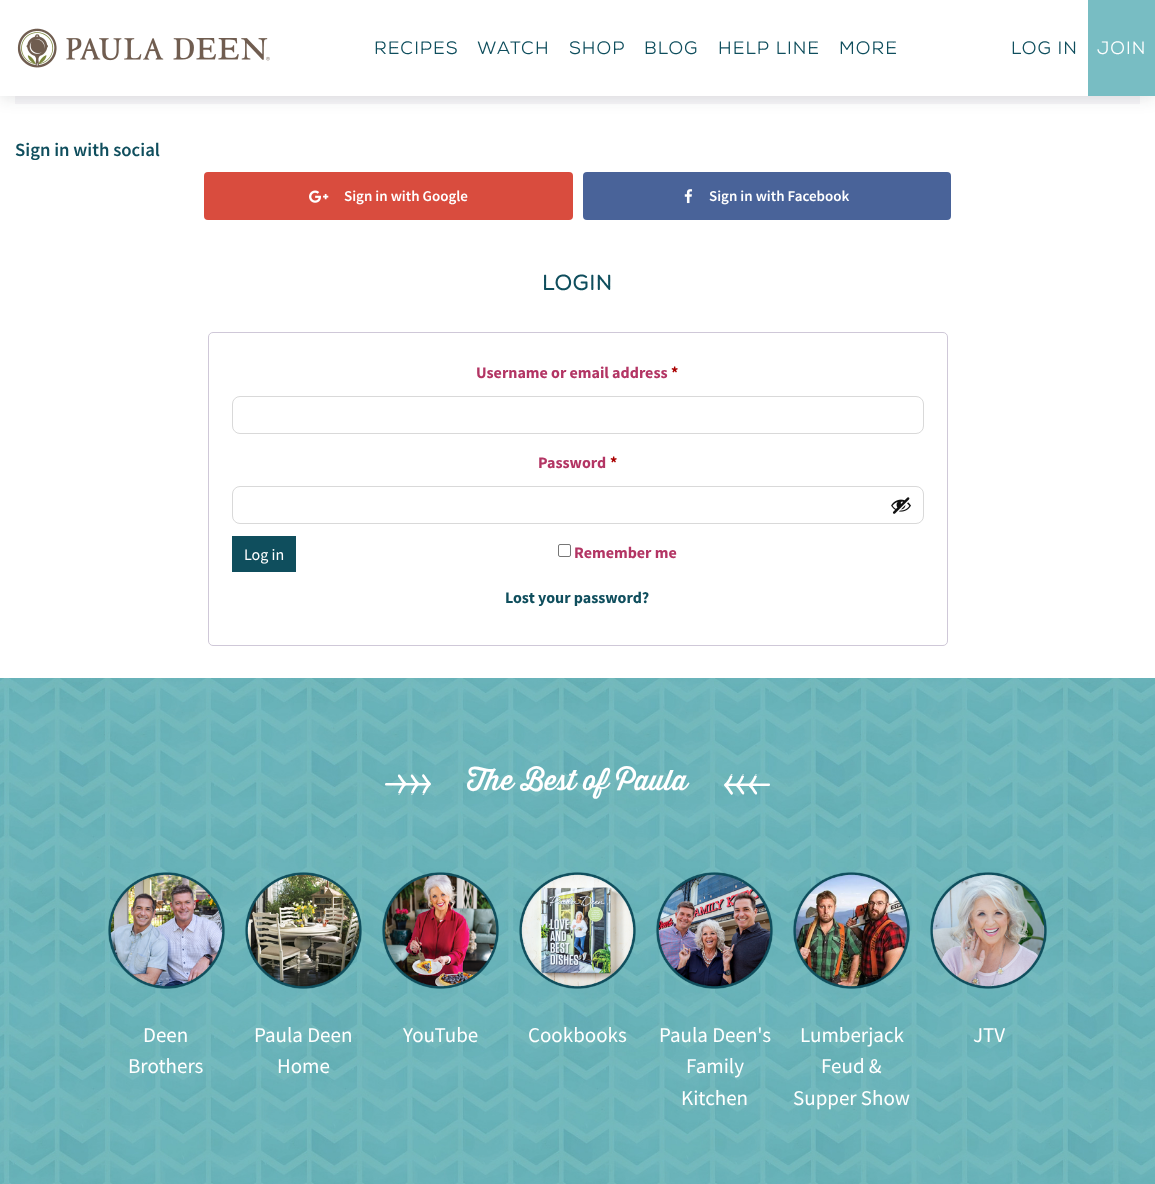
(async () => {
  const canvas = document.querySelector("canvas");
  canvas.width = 1155;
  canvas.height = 1184;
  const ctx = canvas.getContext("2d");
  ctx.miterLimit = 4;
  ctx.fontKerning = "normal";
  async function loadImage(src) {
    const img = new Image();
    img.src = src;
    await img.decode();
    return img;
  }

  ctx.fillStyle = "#ffffff";
  ctx.fillRect(0, 0, 1155, 1184);
  ctx.fillStyle = "#f6f5f8";
  ctx.fillRect(15, 96, 1125, 8);
  ctx.fillStyle = "rgba(21, 28, 31, 0.13)";
  ctx.filter = "blur(8px)";
  ctx.beginPath();
  ctx.rect(0, 2, 1155, 96);
  ctx.fill();
  ctx.filter = "none";
  ctx.fillStyle = "#ffffff";
  ctx.fillRect(0, 0, 1088, 96);
  ctx.drawImage(await loadImage("img/1.png"), 17, 28, 253, 40);
  ctx.fillStyle = "#78bdc3";
  ctx.fillRect(1088, 0, 67, 96);
  ctx.fillStyle = "#d94c3e";
  ctx.beginPath();
  ctx.roundRect(204, 172, 369, 48, 4);
  ctx.fill();
  ctx.drawImage(await loadImage("img/2.png"), 309, 190, 20, 13);
  ctx.fillStyle = "#496399";
  ctx.beginPath();
  ctx.roundRect(583, 172, 368, 48, 4);
  ctx.fill();
  ctx.drawImage(await loadImage("img/3.png"), 684, 189, 9, 15);
  ctx.beginPath();
  ctx.roundRect(208.5, 332.5, 739, 313, 4.5);
  ctx.strokeStyle = "#cfc8d8";
  ctx.stroke();
  ctx.beginPath();
  ctx.roundRect(232.5, 396.5, 691, 37, 7.5);
  ctx.strokeStyle = "#d9d9d9";
  ctx.stroke();
  ctx.beginPath();
  ctx.roundRect(232.5, 486.5, 691, 37, 7.5);
  ctx.stroke();
  ctx.drawImage(await loadImage("img/4.png"), 891, 497, 20, 17);
  ctx.fillStyle = "#0f4e5d";
  ctx.fillRect(232, 536, 64, 36);
  ctx.beginPath();
  ctx.roundRect(558.5, 544.5, 12, 12, 1.5);
  ctx.strokeStyle = "#767676";
  ctx.stroke();
  ctx.drawImage(await loadImage("img/5.png"), 0, 678, 1155, 506);
  ctx.drawImage(await loadImage("img/6.png"), 385, 774, 46, 21);
  ctx.drawImage(await loadImage("img/7.png"), 724, 774, 46, 21);
  ctx.drawImage(await loadImage("img/8.png"), 108, 872, 117, 117);
  ctx.drawImage(await loadImage("img/9.png"), 245, 872, 117, 117);
  ctx.drawImage(await loadImage("img/10.png"), 382, 872, 117, 117);
  ctx.drawImage(await loadImage("img/11.png"), 519, 872, 117, 117);
  ctx.drawImage(await loadImage("img/12.png"), 656, 872, 117, 117);
  ctx.drawImage(await loadImage("img/13.png"), 793, 872, 117, 117);
  ctx.drawImage(await loadImage("img/14.png"), 930, 872, 117, 117);
  ctx.letterSpacing = "1px";
  ctx.font = "18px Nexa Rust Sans";
  for (const [text, x, y] of [
    ["Recipes", 374, 54],
    ["Watch", 477, 54],
    ["Shop", 569, 54],
    ["Blog", 644, 54],
    ["Help Line", 718, 54],
    ["More", 839, 54],
    ["Log In", 1011, 54],
  ]) {
    ctx.fillText(text, x, y);
  }
  ctx.fillStyle = "#ffffff";
  ctx.fillText("Join", 1097, 54);
  ctx.letterSpacing = "0px";
  ctx.font = "600 18.75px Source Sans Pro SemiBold";
  ctx.fillStyle = "#0f4e5d";
  ctx.fillText("Sign in with social", 15, 156);
  ctx.font = "600 15px Source Sans Pro SemiBold";
  ctx.fillStyle = "#ffffff";
  ctx.fillText("Sign in with Google", 344, 201);
  ctx.fillText("Sign in with Facebook", 709, 201);
  ctx.letterSpacing = "1px";
  ctx.font = "bold 21px Nexa Rust Sans";
  ctx.fillStyle = "#0f4e5d";
  ctx.fillText("Login", 542, 290);
  ctx.letterSpacing = "0px";
  ctx.font = "bold 16px Source Sans Pro";
  ctx.fillStyle = "#b33564";
  ctx.fillText("Username or email address", 476, 378);
  ctx.fillStyle = "#aa0000";
  ctx.fillText("*", 671, 378);
  ctx.fillStyle = "#b33564";
  ctx.fillText("Password", 538, 468);
  ctx.fillStyle = "#aa0000";
  ctx.fillText("*", 610, 468);
  ctx.font = "16px Source Sans Pro";
  ctx.fillStyle = "#ffffff";
  ctx.fillText("Log in", 244, 560);
  ctx.font = "bold 16px Source Sans Pro";
  ctx.fillStyle = "#b33564";
  ctx.fillText("Remember me", 574, 558);
  ctx.fillStyle = "#0f4e5d";
  ctx.fillText("Lost your password?", 505, 603);
  ctx.font = "28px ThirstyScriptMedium";
  ctx.fillStyle = "#ffffff";
  ctx.fillText("The Best of Paula", 467, 790);
  ctx.font = "21px Source Sans Pro";
  for (const [text, x, y] of [
    ["Deen", 143, 1042],
    ["Brothers", 128, 1073],
    ["Paula Deen", 254, 1042],
    ["Home", 277, 1073],
    ["YouTube", 403, 1042],
    ["Cookbooks", 528, 1042],
    ["Paula Deen's", 659, 1042],
    ["Family", 686, 1073],
    ["Kitchen", 681, 1105],
    ["Lumberjack", 800, 1042],
    ["Feud &", 821, 1073],
    ["Supper Show", 793, 1105],
    ["JTV", 973, 1042],
  ]) {
    ctx.fillText(text, x, y);
  }
})();
